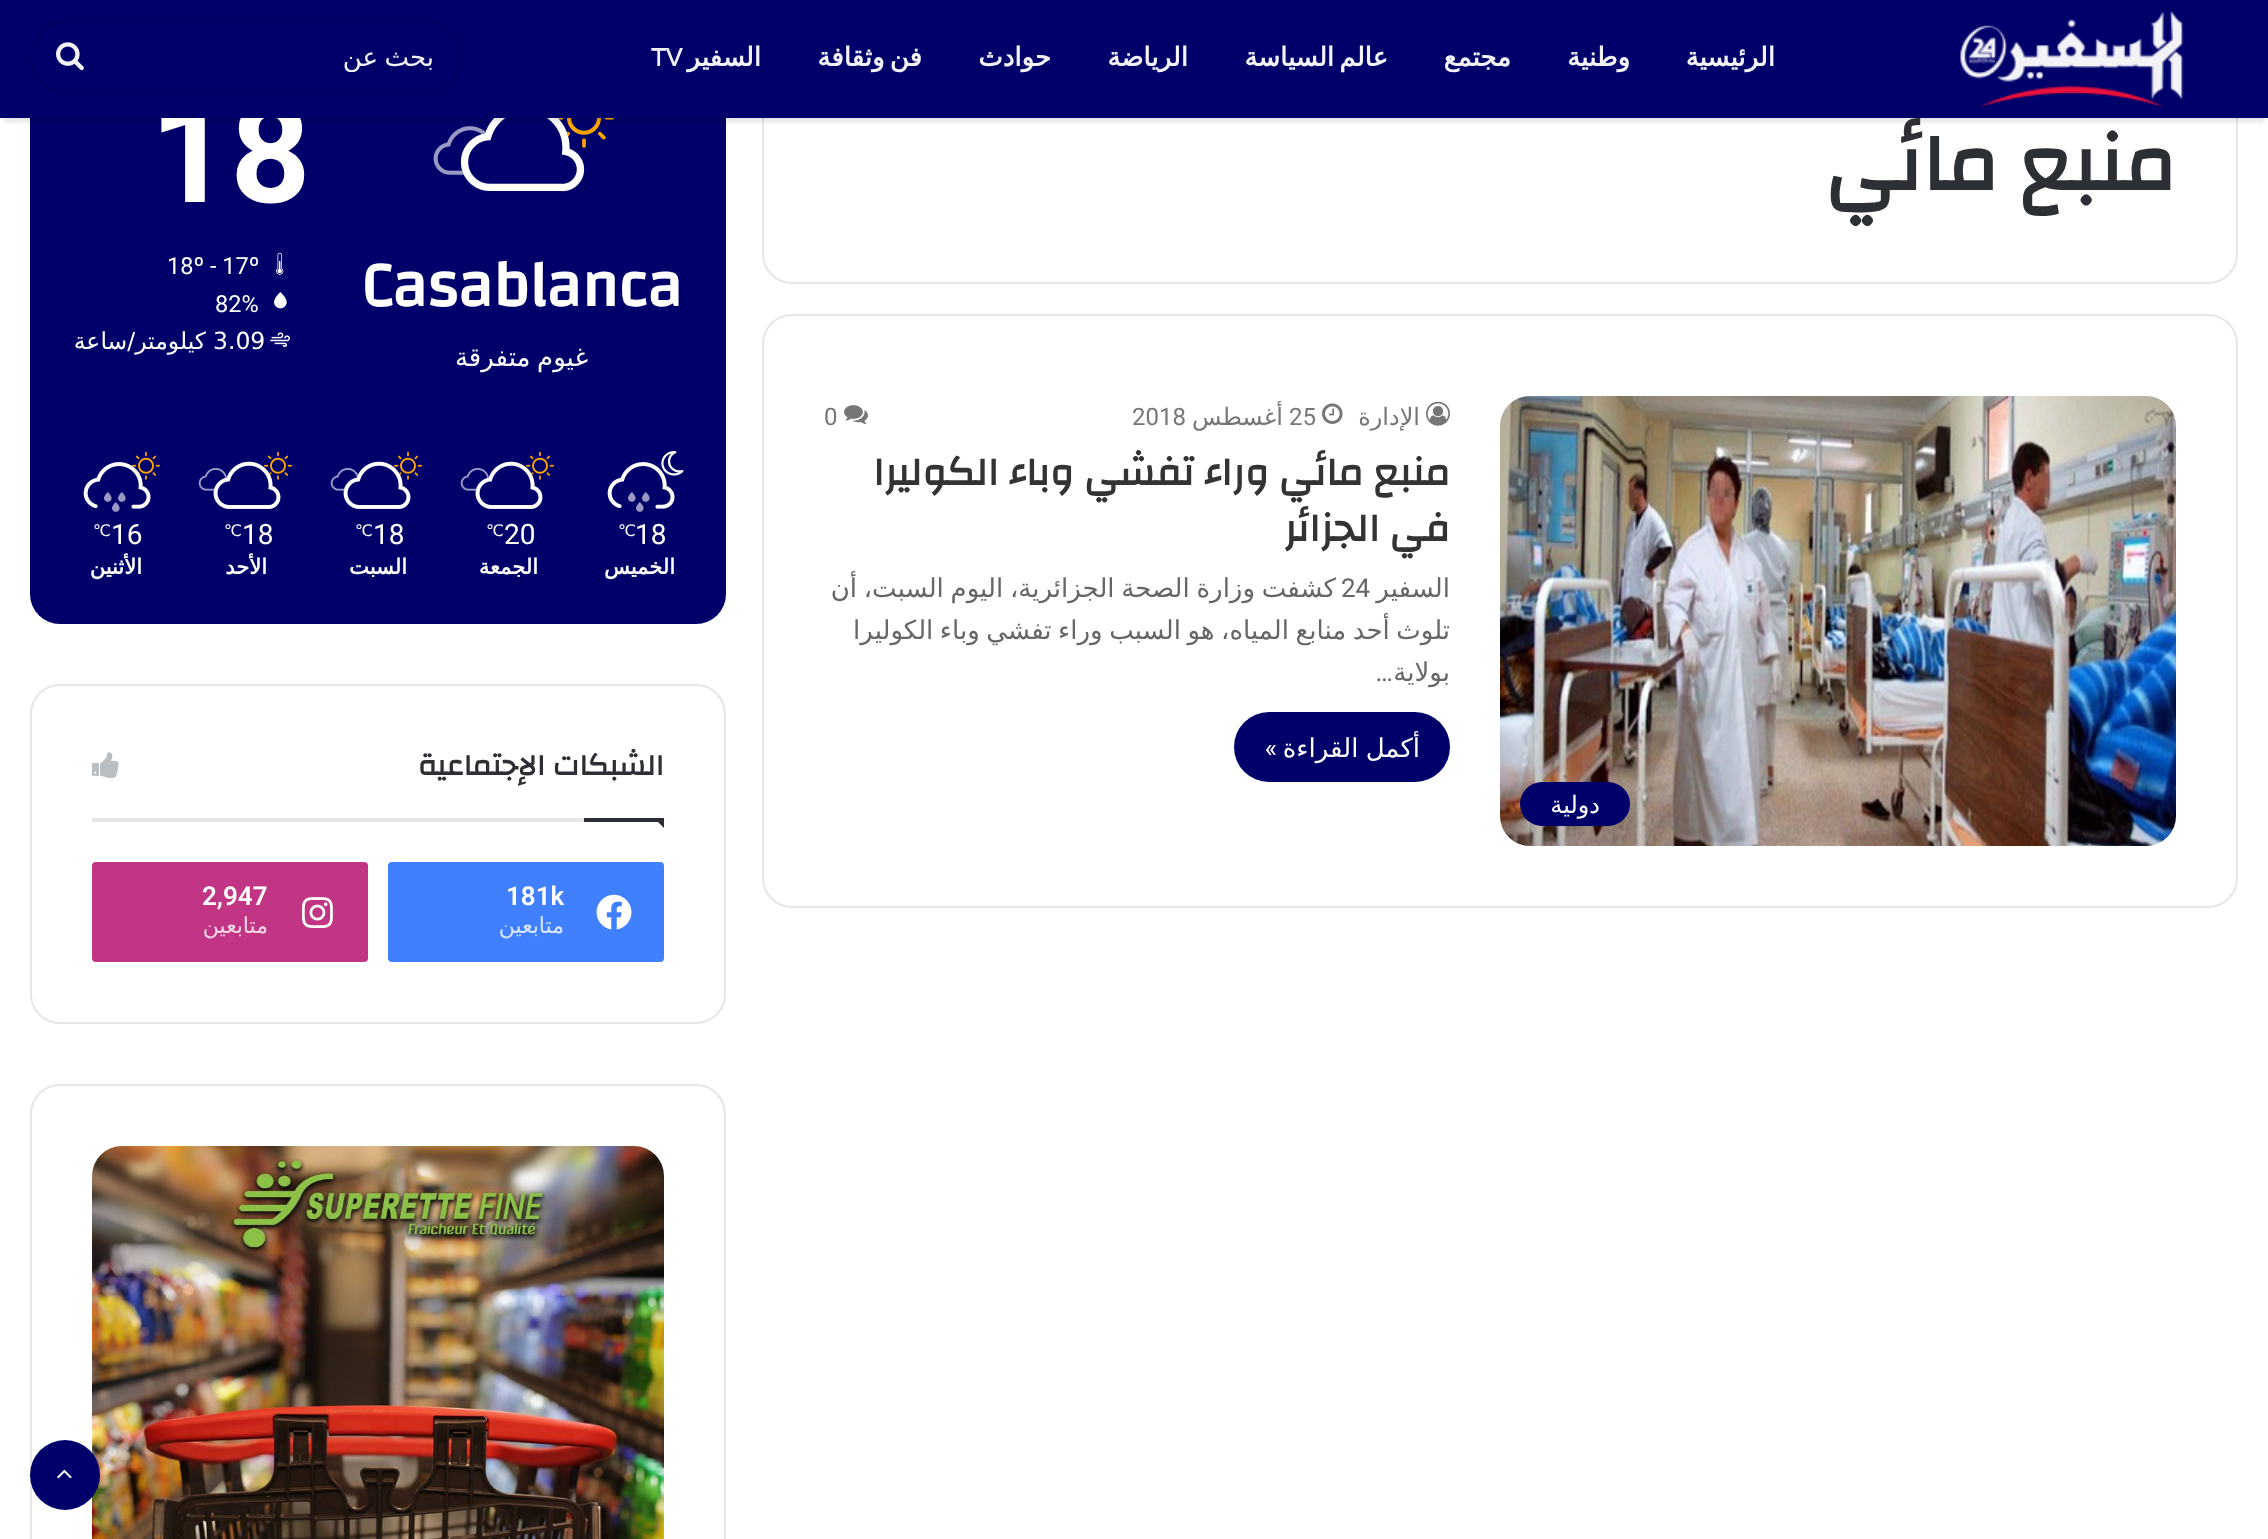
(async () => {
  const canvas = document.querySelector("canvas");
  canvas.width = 2268;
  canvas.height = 1539;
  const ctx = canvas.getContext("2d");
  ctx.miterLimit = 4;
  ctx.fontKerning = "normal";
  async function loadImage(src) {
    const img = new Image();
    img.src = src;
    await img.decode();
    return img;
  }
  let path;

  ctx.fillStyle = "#ffffff";
  ctx.fillRect(0, 0, 2268, 1539);
  ctx.beginPath();
  ctx.roundRect(763, -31, 1474, 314, 29);
  ctx.strokeStyle = "#e6e6e6";
  ctx.lineWidth = 2;
  ctx.stroke();
  ctx.fillStyle = "#00006a";
  ctx.beginPath();
  ctx.roundRect(30, -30, 696, 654, 30);
  ctx.fill();
  ctx.drawImage(await loadImage("img/8.png"), 558, 118, 56, 30);
  ctx.drawImage(await loadImage("img/10.png"), 433, 126, 53, 49);
  ctx.drawImage(await loadImage("img/9.png"), 462, 118, 106, 57);
  ctx.drawImage(await loadImage("img/7.png"), 460, 118, 125, 74);
  ctx.fillStyle = "rgba(0, 0, 0, 0.1)";
  ctx.filter = "blur(2px)";
  ctx.beginPath();
  ctx.rect(4, 10, 2260, 112);
  ctx.fill();
  ctx.filter = "none";
  ctx.beginPath();
  ctx.roundRect(763, 315, 1474, 592, 29);
  ctx.stroke();
  ctx.drawImage(await loadImage("img/3.png"), 1426, 401, 24, 25);
  ctx.drawImage(await loadImage("img/4.png"), 1322, 403, 21, 21);
  ctx.drawImage(await loadImage("img/5.png"), 844, 405, 24, 19);
  ctx.fillStyle = "#00006a";
  ctx.beginPath();
  ctx.roundRect(1234, 712, 216, 70, 35);
  ctx.fill();
  ctx.drawImage(await loadImage("img/6.png"), 1500, 396, 676, 450);
  ctx.beginPath();
  ctx.roundRect(1520, 782, 110, 44, 22);
  ctx.fill();
  ctx.drawImage(await loadImage("img/11.png"), 276, 252, 8, 23);
  ctx.drawImage(await loadImage("img/12.png"), 274, 292, 13, 17);
  ctx.drawImage(await loadImage("img/13.png"), 270, 332, 20, 16);
  ctx.drawImage(await loadImage("img/14.png"), 661, 451, 23, 25);
  ctx.drawImage(await loadImage("img/15.png"), 607, 462, 68, 47);
  ctx.drawImage(await loadImage("img/16.png"), 642, 492, 8, 10);
  ctx.drawImage(await loadImage("img/16.png"), 628, 492, 8, 10);
  ctx.drawImage(await loadImage("img/16.png"), 636, 502, 8, 10);
  ctx.drawImage(await loadImage("img/17.png"), 526, 451, 28, 29);
  ctx.drawImage(await loadImage("img/19.png"), 460, 468, 29, 23);
  ctx.drawImage(await loadImage("img/20.png"), 475, 473, 57, 18);
  ctx.drawImage(await loadImage("img/18.png"), 475, 461, 68, 48);
  ctx.drawImage(await loadImage("img/17.png"), 394, 451, 28, 29);
  ctx.drawImage(await loadImage("img/19.png"), 330, 468, 29, 23);
  ctx.drawImage(await loadImage("img/22.png"), 343, 473, 57, 18);
  ctx.drawImage(await loadImage("img/21.png"), 343, 461, 68, 48);
  ctx.drawImage(await loadImage("img/17.png"), 264, 451, 28, 29);
  ctx.drawImage(await loadImage("img/19.png"), 198, 468, 29, 23);
  ctx.drawImage(await loadImage("img/20.png"), 213, 473, 57, 18);
  ctx.drawImage(await loadImage("img/18.png"), 213, 461, 68, 48);
  ctx.drawImage(await loadImage("img/17.png"), 132, 451, 28, 29);
  ctx.fillRect(135, 474, 3, 2);
  ctx.drawImage(await loadImage("img/23.png"), 83, 462, 68, 47);
  ctx.drawImage(await loadImage("img/16.png"), 118, 492, 8, 10);
  ctx.drawImage(await loadImage("img/16.png"), 104, 492, 8, 10);
  ctx.drawImage(await loadImage("img/16.png"), 112, 502, 8, 10);
  ctx.beginPath();
  ctx.roundRect(31, 685, 694, 338, 29);
  ctx.stroke();
  ctx.fillStyle = "#e6e6e6";
  ctx.fillRect(92, 818, 492, 4);
  ctx.drawImage(await loadImage("img/24.png"), 92, 752, 27, 26);
  ctx.fillStyle = "#2c2f34";
  path = new Path2D("M654 818H664V828Z");
  ctx.fill(path);
  ctx.fillRect(584, 818, 80, 4);
  ctx.fillStyle = "#4080ff";
  ctx.beginPath();
  ctx.roundRect(388, 862, 276, 100, 4);
  ctx.fill();
  ctx.drawImage(await loadImage("img/25.png"), 596, 894, 36, 36);
  ctx.fillStyle = "#c13584";
  ctx.beginPath();
  ctx.roundRect(92, 862, 276, 100, 4);
  ctx.fill();
  ctx.drawImage(await loadImage("img/26.png"), 302, 897, 31, 31);
  ctx.beginPath();
  ctx.roundRect(31, 1085, 694, 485, 29);
  ctx.stroke();
  ctx.drawImage(await loadImage("img/27.png"), 92, 1146, 572, 393);
  ctx.fillStyle = "#00006a";
  ctx.beginPath();
  ctx.arc(65, 1475, 35, 0, Math.PI * 2);
  ctx.fill();
  ctx.drawImage(await loadImage("img/28.png"), 57, 1469, 15, 10);
  ctx.direction = "rtl";
  ctx.font = "bold 82px Changa";
  ctx.fillStyle = "#2c2f34";
  ctx.fillText("منبع مائي", 2176, 190);
  ctx.font = "24px DejaVu Sans";
  ctx.fillStyle = "#767676";
  ctx.fillText("الإدارة", 1420, 425);
  ctx.direction = "ltr";
  ctx.font = "24px Roboto";
  ctx.fillText("25", 1289, 425);
  ctx.direction = "rtl";
  ctx.font = "24px DejaVu Sans";
  ctx.fillText("أغسطس", 1283, 425);
  ctx.direction = "ltr";
  ctx.font = "24px Roboto";
  ctx.fillText("2018", 1132, 425);
  ctx.fillText("0", 824, 425);
  ctx.direction = "rtl";
  ctx.font = "bold 40px Changa";
  ctx.fillStyle = "#333333";
  ctx.fillText("منبع مائي وراء تفشي وباء الكوليرا", 1450, 485);
  ctx.fillText("في الجزائر", 1450, 541);
  ctx.font = "26px DejaVu Sans";
  ctx.fillStyle = "#666666";
  ctx.fillText("السفير", 1450, 597);
  ctx.wordSpacing = "-1.5px";
  ctx.fillText("كشفت وزارة الصحة الجزائرية، اليوم السبت، أن", 1336, 597);
  ctx.wordSpacing = "0px";
  ctx.direction = "ltr";
  ctx.font = "26px Roboto";
  ctx.fillText("24", 1341, 597);
  ctx.wordSpacing = "-1.75px";
  ctx.direction = "rtl";
  ctx.font = "26px DejaVu Sans";
  ctx.fillText("تلوث أحد منابع المياه، هو السبب وراء تفشي وباء الكوليرا", 1450, 639);
  ctx.wordSpacing = "0px";
  ctx.fillText("بولاية", 1450, 681);
  ctx.font = "26px Roboto";
  ctx.fillText("…", 1393, 681);
  ctx.wordSpacing = "-1px";
  ctx.font = "26px DejaVu Sans";
  ctx.fillStyle = "#ffffff";
  ctx.fillText("أكمل القراءة", 1420, 757);
  ctx.wordSpacing = "0px";
  ctx.font = "26px Roboto";
  ctx.fillText("»", 1277, 757);
  ctx.font = "24px DejaVu Sans";
  ctx.fillText("دولية", 1600, 813);
  ctx.direction = "ltr";
  ctx.font = "bold 64px Changa";
  ctx.fillText("Casablanca", 361, 306);
  ctx.wordSpacing = "-1.75px";
  ctx.direction = "rtl";
  ctx.font = "26px DejaVu Sans";
  ctx.fillText("غيوم متفرقة", 588, 366);
  ctx.wordSpacing = "0px";
  ctx.direction = "ltr";
  ctx.font = "bold 140px Roboto";
  ctx.fillText("18", 150, 202);
  ctx.fillStyle = "#00006a";
  ctx.fillRect(0, 0, 2268, 118);
  ctx.beginPath();
  ctx.roundRect(31, 21, 430, 72, 36);
  ctx.strokeStyle = "#000060";
  ctx.stroke();
  ctx.drawImage(await loadImage("img/2.png"), 56, 42, 28, 29);
  ctx.save();
  ctx.beginPath();
  ctx.rect(102, 42, 332, 30);
  ctx.clip();
  ctx.wordSpacing = "-1.75px";
  ctx.direction = "rtl";
  ctx.font = "26px DejaVu Sans";
  ctx.fillStyle = "#f2f2f8";
  ctx.fillText("بحث عن", 434, 66);
  ctx.restore();
  ctx.direction = "rtl";
  ctx.font = "bold 26px DejaVu Sans";
  ctx.fillStyle = "#f2f2f8";
  ctx.fillText("السفير", 761, 66);
  ctx.direction = "ltr";
  ctx.font = "bold 26px Questrial";
  ctx.fillText("TV", 651, 66);
  ctx.wordSpacing = "-3px";
  ctx.direction = "rtl";
  ctx.font = "bold 26px DejaVu Sans";
  ctx.fillText("فن وثقافة", 922, 66);
  ctx.wordSpacing = "0px";
  ctx.fillText("حوادث", 1051, 66);
  ctx.fillText("الرياضة", 1188, 66);
  ctx.wordSpacing = "-3px";
  ctx.fillText("عالم السياسة", 1388, 66);
  ctx.wordSpacing = "0px";
  for (const [text, x, y] of [
    ["مجتمع", 1511, 66],
    ["وطنية", 1630, 66],
    ["الرئيسية", 1775, 66],
  ]) {
    ctx.fillText(text, x, y);
  }
  ctx.drawImage(await loadImage("img/1.png"), 1960, 11, 224, 96);
  ctx.direction = "ltr";
  ctx.font = "23.5px Roboto";
  ctx.fillStyle = "#ffffff";
  ctx.fillText("18º - 17º", 167, 274);
  ctx.fillText("82%", 215, 312);
  ctx.font = "23.5px DejaVu Sans";
  ctx.fillText("3.09", 213, 349);
  ctx.direction = "rtl";
  ctx.fillText("كيلومتر/ساعة", 206, 349);
  ctx.direction = "ltr";
  ctx.font = "28px Roboto";
  ctx.fillText("18", 635, 544);
  ctx.font = "16px DejaVu Sans";
  ctx.fillText("℃", 618, 536);
  ctx.direction = "rtl";
  ctx.font = "bold 21px DejaVu Sans";
  ctx.fillText("الخميس", 675, 574);
  ctx.direction = "ltr";
  ctx.font = "28px Roboto";
  ctx.fillText("20", 504, 544);
  ctx.font = "16px DejaVu Sans";
  ctx.fillText("℃", 486, 536);
  ctx.direction = "rtl";
  ctx.font = "bold 21px DejaVu Sans";
  ctx.fillText("الجمعة", 538, 574);
  ctx.direction = "ltr";
  ctx.font = "28px Roboto";
  ctx.fillText("18", 373, 544);
  ctx.font = "16px DejaVu Sans";
  ctx.fillText("℃", 355, 536);
  ctx.direction = "rtl";
  ctx.font = "bold 21px DejaVu Sans";
  ctx.fillText("السبت", 407, 574);
  ctx.direction = "ltr";
  ctx.font = "28px Roboto";
  ctx.fillText("18", 242, 544);
  ctx.font = "16px DejaVu Sans";
  ctx.fillText("℃", 224, 536);
  ctx.direction = "rtl";
  ctx.font = "bold 21px DejaVu Sans";
  ctx.fillText("الأحد", 267, 574);
  ctx.direction = "ltr";
  ctx.font = "28px Roboto";
  ctx.fillText("16", 111, 544);
  ctx.font = "16px DejaVu Sans";
  ctx.fillText("℃", 93, 536);
  ctx.direction = "rtl";
  ctx.font = "bold 21px DejaVu Sans";
  ctx.fillText("الأثنين", 142, 574);
  ctx.font = "bold 30px Changa";
  ctx.fillStyle = "#2c2f34";
  ctx.fillText("الشبكات الإجتماعية", 664, 775);
  ctx.direction = "ltr";
  ctx.font = "600 26px Roboto";
  ctx.fillStyle = "#ffffff";
  ctx.fillText("181k", 506, 905);
  ctx.direction = "rtl";
  ctx.font = "22px DejaVu Sans";
  ctx.fillStyle = "#d9e6ff";
  ctx.fillText("متابعين", 564, 933);
  ctx.direction = "ltr";
  ctx.font = "600 26px Roboto";
  ctx.fillStyle = "#ffffff";
  ctx.fillText("2,947", 202, 905);
  ctx.direction = "rtl";
  ctx.font = "22px DejaVu Sans";
  ctx.fillStyle = "#f3d7e6";
  ctx.fillText("متابعين", 268, 933);
})();
